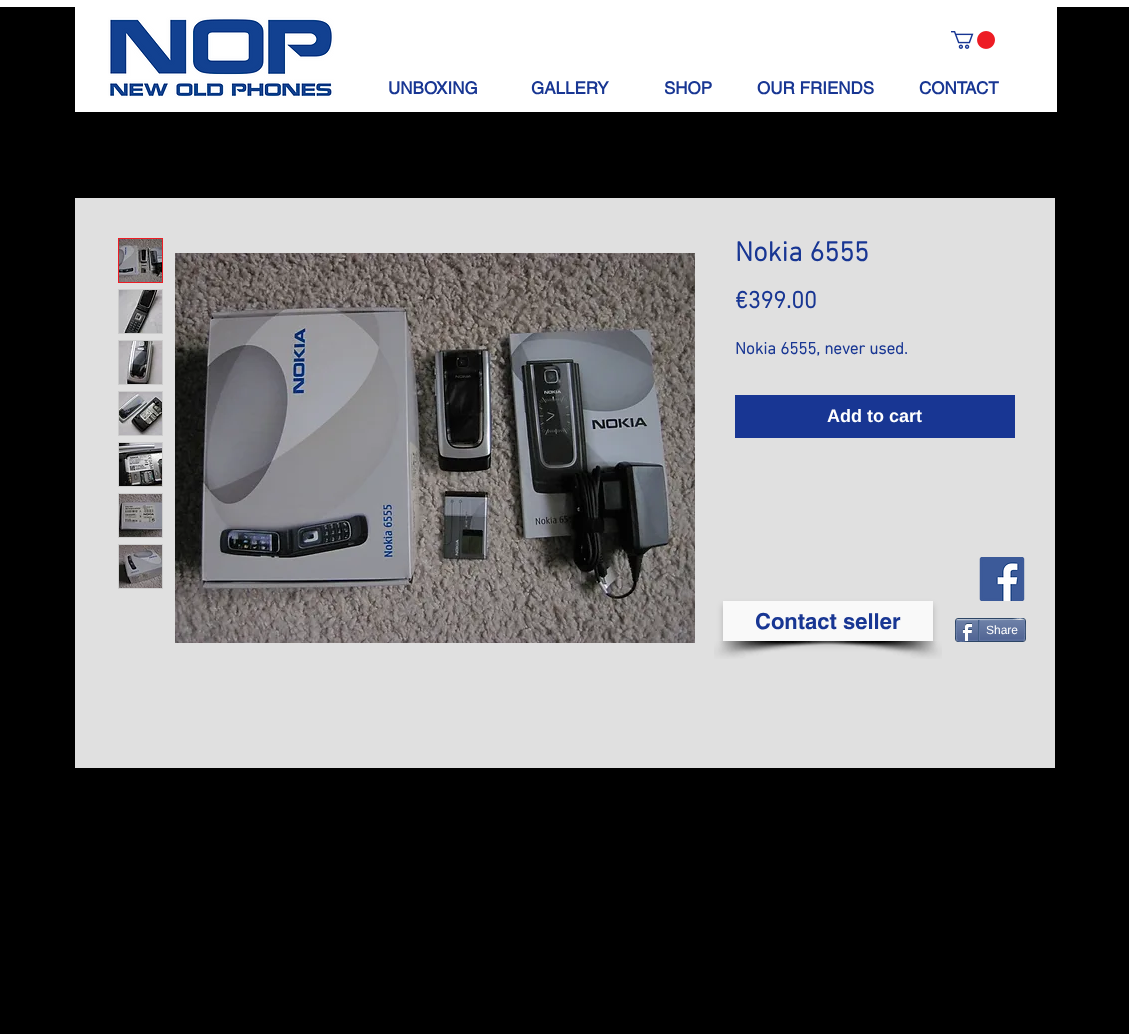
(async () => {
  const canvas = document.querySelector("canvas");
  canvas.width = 1129;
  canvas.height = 1034;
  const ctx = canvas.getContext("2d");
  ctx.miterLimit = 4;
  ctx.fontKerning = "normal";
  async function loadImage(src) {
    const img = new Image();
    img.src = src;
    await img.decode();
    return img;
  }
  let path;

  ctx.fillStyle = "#000000";
  ctx.fillRect(0, 0, 1129, 1034);
  ctx.fillStyle = "#ffffff";
  ctx.fillRect(0, 0, 1129, 7);
  ctx.fillRect(75, 7, 982, 105);
  ctx.drawImage(await loadImage("img/1.png"), 108, 17, 226, 81);
  ctx.drawImage(await loadImage("img/2.png"), 951, 31, 44, 18);
  ctx.fillStyle = "#e0e0e0";
  ctx.fillRect(75, 198, 980, 570);
  ctx.strokeStyle = "#ed1c24";
  ctx.strokeRect(118.5, 238.5, 44, 44);
  ctx.drawImage(await loadImage("img/3.png"), 119, 239, 43, 43);
  ctx.strokeStyle = "#cccccc";
  ctx.strokeRect(118.5, 289.5, 44, 44);
  ctx.drawImage(await loadImage("img/4.png"), 119, 290, 43, 43);
  ctx.strokeRect(118.5, 340.5, 44, 44);
  ctx.drawImage(await loadImage("img/5.png"), 119, 341, 43, 43);
  ctx.strokeRect(118.5, 391.5, 44, 44);
  ctx.drawImage(await loadImage("img/6.png"), 119, 392, 43, 43);
  ctx.strokeRect(118.5, 442.5, 44, 44);
  ctx.drawImage(await loadImage("img/7.png"), 119, 443, 43, 43);
  ctx.strokeRect(118.5, 493.5, 44, 44);
  ctx.drawImage(await loadImage("img/8.png"), 119, 494, 43, 43);
  ctx.strokeRect(118.5, 544.5, 44, 44);
  ctx.drawImage(await loadImage("img/9.png"), 119, 545, 43, 43);
  ctx.drawImage(await loadImage("img/10.png"), 175, 253, 520, 390);
  ctx.fillStyle = "#183693";
  ctx.fillRect(735, 395, 280, 43);
  ctx.drawImage(await loadImage("img/11.png"), 979, 557, 46, 44);
  ctx.drawImage(await loadImage("img/12.png"), 714, 641, 154, 18);
  ctx.drawImage(await loadImage("img/13.png"), 808, 641, 134, 18);
  ctx.fillStyle = "rgba(0, 0, 0, 0.2)";
  ctx.filter = "blur(3px)";
  ctx.beginPath();
  ctx.rect(723, 605, 210, 40);
  ctx.fill();
  ctx.filter = "none";
  ctx.fillStyle = "#f9f9f9";
  ctx.fillRect(723, 601, 210, 40);
  ctx.beginPath();
  ctx.roundRect(955.5, 618.5, 70, 23, 2.5);
  ctx.strokeStyle = "#2d4565";
  ctx.stroke();
  ctx.drawImage(await loadImage("img/14.png"), 956, 620, 69, 21);
  path = new Path2D("M957 620L1012 619.5C1016 619.5 1021 617 1024 620");
  ctx.strokeStyle = "#9aabc6";
  ctx.stroke(path);
  path = new Path2D("M1024 620C1025 620.5 1025 639.5 1024 640");
  ctx.strokeStyle = "#6f83ad";
  ctx.stroke(path);
  path = new Path2D("M1024 640L969 640.5C965 640.5 960 643 957 640");
  ctx.strokeStyle = "#6176a3";
  ctx.stroke(path);
  path = new Path2D("M957 640C956 639.5 956 620.5 957 620");
  ctx.strokeStyle = "#6f83ad";
  ctx.stroke(path);
  ctx.drawImage(await loadImage("img/15.png"), 962, 623, 10, 18);
  ctx.fillStyle = "#425e85";
  ctx.fillRect(978, 620, 1, 21);
  ctx.fillStyle = "#6176a3";
  ctx.fillRect(979, 620, 1, 20);
  ctx.font = "bold 17px 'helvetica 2'";
  ctx.fillStyle = "#183693";
  for (const [text, x, y] of [
    ["UNBOXING", 388, 94],
    ["GALLERY", 531, 94],
    ["SHOP", 664, 94],
    ["OUR FRIENDS", 757, 94],
    ["CONTACT", 919, 94],
  ]) {
    ctx.fillText(text, x, y);
  }
  ctx.font = "bold 28px 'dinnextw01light'";
  ctx.fillText("Nokia 6555", 735, 261);
  ctx.font = "bold 24px 'dinnextw01light'";
  ctx.fillText("€399.00", 735, 308);
  ctx.font = "bold 17px 'dinnextw01light'";
  ctx.fillText("Nokia 6555, never used.", 735, 354);
  ctx.font = "bold 18px Liberation Sans";
  ctx.fillStyle = "#ffffff";
  ctx.fillText("Add to cart", 827, 422);
  ctx.font = "bold 22px helvetica";
  ctx.fillStyle = "#183693";
  ctx.fillText("Contact seller", 755, 629);
  ctx.font = "12px Liberation Sans";
  ctx.fillStyle = "#ffffff";
  ctx.fillText("Share", 986, 634);
})();
